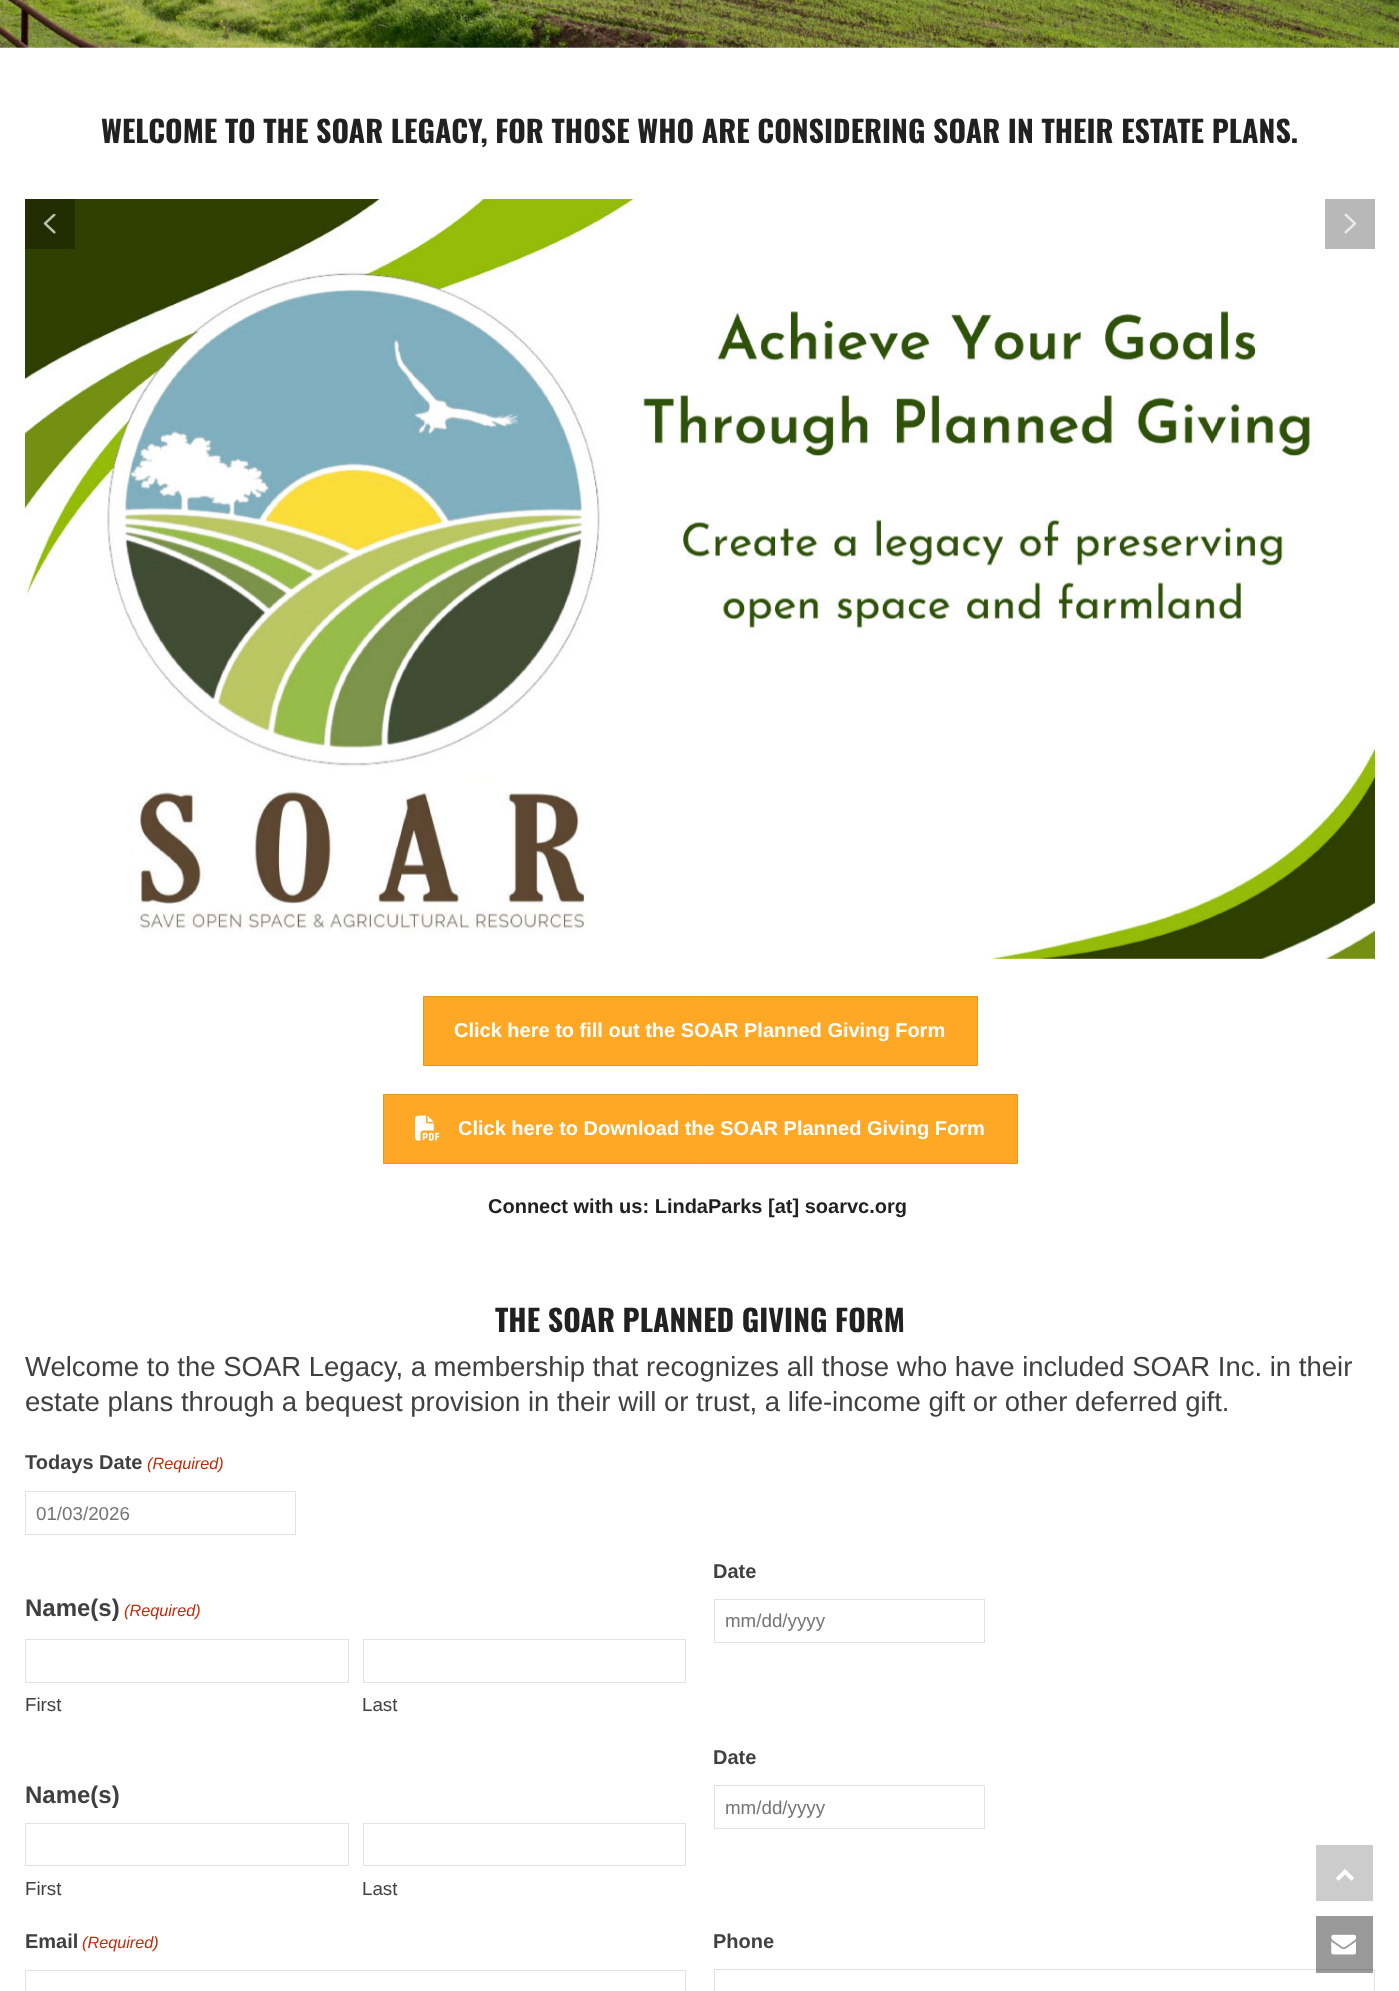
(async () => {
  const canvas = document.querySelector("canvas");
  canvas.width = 1399;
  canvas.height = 1991;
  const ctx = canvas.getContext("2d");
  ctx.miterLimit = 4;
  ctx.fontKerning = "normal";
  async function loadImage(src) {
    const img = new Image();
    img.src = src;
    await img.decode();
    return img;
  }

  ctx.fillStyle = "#ffffff";
  ctx.fillRect(0, 0, 1399, 1991);
  ctx.drawImage(await loadImage("img/1.png"), 0, 0, 1399, 48);
  ctx.drawImage(await loadImage("img/2.png"), 25, 199, 1350, 760);
  ctx.fillStyle = "#222e01";
  ctx.fillRect(25, 199, 50, 50);
  ctx.drawImage(await loadImage("img/3.png"), 43, 214, 13, 20);
  ctx.fillStyle = "#b8b8b8";
  ctx.fillRect(1325, 199, 50, 50);
  ctx.drawImage(await loadImage("img/4.png"), 1344, 214, 13, 20);
  ctx.fillStyle = "#ffa826";
  ctx.beginPath();
  ctx.rect(423.5, 996.5, 554, 69);
  ctx.fill();
  ctx.strokeStyle = "#e69722";
  ctx.stroke();
  ctx.beginPath();
  ctx.rect(383.5, 1094.5, 634, 69);
  ctx.fill();
  ctx.stroke();
  ctx.drawImage(await loadImage("img/5.png"), 415, 1115, 25, 26);
  ctx.strokeStyle = "#e3e3e3";
  ctx.strokeRect(25.5, 1491.5, 270, 43);
  ctx.strokeRect(25.5, 1639.5, 323, 43);
  ctx.strokeRect(363.5, 1639.5, 322, 43);
  ctx.strokeRect(714.5, 1599.5, 270, 43);
  ctx.strokeRect(25.5, 1823.5, 323, 42);
  ctx.strokeRect(363.5, 1823.5, 322, 42);
  ctx.strokeRect(714.5, 1785.5, 270, 43);
  ctx.strokeRect(25.5, 1970.5, 660, 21);
  ctx.strokeRect(714.5, 1969.5, 660, 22);
  ctx.fillStyle = "#cccccc";
  ctx.fillRect(1316, 1845, 57, 56);
  ctx.drawImage(await loadImage("img/6.png"), 1336, 1869, 18, 12);
  ctx.fillStyle = "rgba(0, 0, 0, 0.4)";
  ctx.fillRect(1316, 1916, 57, 57);
  ctx.drawImage(await loadImage("img/7.png"), 1331, 1934, 25, 21);
  ctx.font = "bold 30px Oswald";
  ctx.fillStyle = "#212121";
  ctx.fillText("WELCOME TO THE SOAR LEGACY, FOR THOSE WHO ARE CONSIDERING SOAR IN THEIR ESTATE PLANS.", 101, 143);
  ctx.font = "bold 20px Liberation Sans";
  ctx.fillStyle = "#ffffff";
  ctx.fillText("Click here to fill out the SOAR Planned Giving Form", 454, 1037);
  ctx.fillText("Click here to Download the SOAR Planned Giving Form", 458, 1135);
  ctx.fillStyle = "#212121";
  ctx.fillText("Connect with us: LindaParks [at] soarvc.org", 488, 1213);
  ctx.font = "bold 30px Oswald";
  ctx.fillText("THE SOAR PLANNED GIVING FORM", 495, 1332);
  ctx.font = "27.5px Liberation Sans";
  ctx.fillStyle = "#404040";
  ctx.fillText("Welcome to the SOAR Legacy, a membership that recognizes all those who have included SOAR Inc. in their", 25, 1376);
  ctx.fillText("estate plans through a bequest provision in their will or trust, a life-income gift or other deferred gift.", 25, 1411);
  ctx.font = "bold 20px Liberation Sans";
  ctx.fillText("Todays Date", 25, 1469);
  ctx.font = "italic 16.25px Liberation Sans";
  ctx.fillStyle = "#c02b0a";
  ctx.fillText("(Required)", 147, 1469);
  ctx.font = "18.75px Liberation Sans";
  ctx.fillStyle = "#767676";
  ctx.fillText("01/03/2026", 36, 1520);
  ctx.font = "bold 24px Liberation Sans";
  ctx.fillStyle = "#404040";
  ctx.fillText("Name(s)", 25, 1616);
  ctx.font = "italic 16.25px Liberation Sans";
  ctx.fillStyle = "#c02b0a";
  ctx.fillText("(Required)", 124, 1616);
  ctx.font = "18.75px Liberation Sans";
  ctx.fillStyle = "#404040";
  ctx.fillText("First", 25, 1711);
  ctx.fillText("Last", 362, 1711);
  ctx.font = "bold 20px Liberation Sans";
  ctx.fillText("Date", 713, 1578);
  ctx.font = "18.75px Liberation Sans";
  ctx.fillStyle = "#767676";
  ctx.fillText("mm/dd/yyyy", 725, 1627);
  ctx.font = "bold 24px Liberation Sans";
  ctx.fillStyle = "#404040";
  ctx.fillText("Name(s)", 25, 1803);
  ctx.font = "18.75px Liberation Sans";
  ctx.fillText("First", 25, 1895);
  ctx.fillText("Last", 362, 1895);
  ctx.font = "bold 20px Liberation Sans";
  ctx.fillText("Date", 713, 1764);
  ctx.font = "18.75px Liberation Sans";
  ctx.fillStyle = "#767676";
  ctx.fillText("mm/dd/yyyy", 725, 1814);
  ctx.font = "bold 20px Liberation Sans";
  ctx.fillStyle = "#404040";
  ctx.fillText("Email", 25, 1948);
  ctx.font = "italic 16.25px Liberation Sans";
  ctx.fillStyle = "#c02b0a";
  ctx.fillText("(Required)", 82, 1948);
  ctx.font = "bold 20px Liberation Sans";
  ctx.fillStyle = "#404040";
  ctx.fillText("Phone", 713, 1948);
})();
